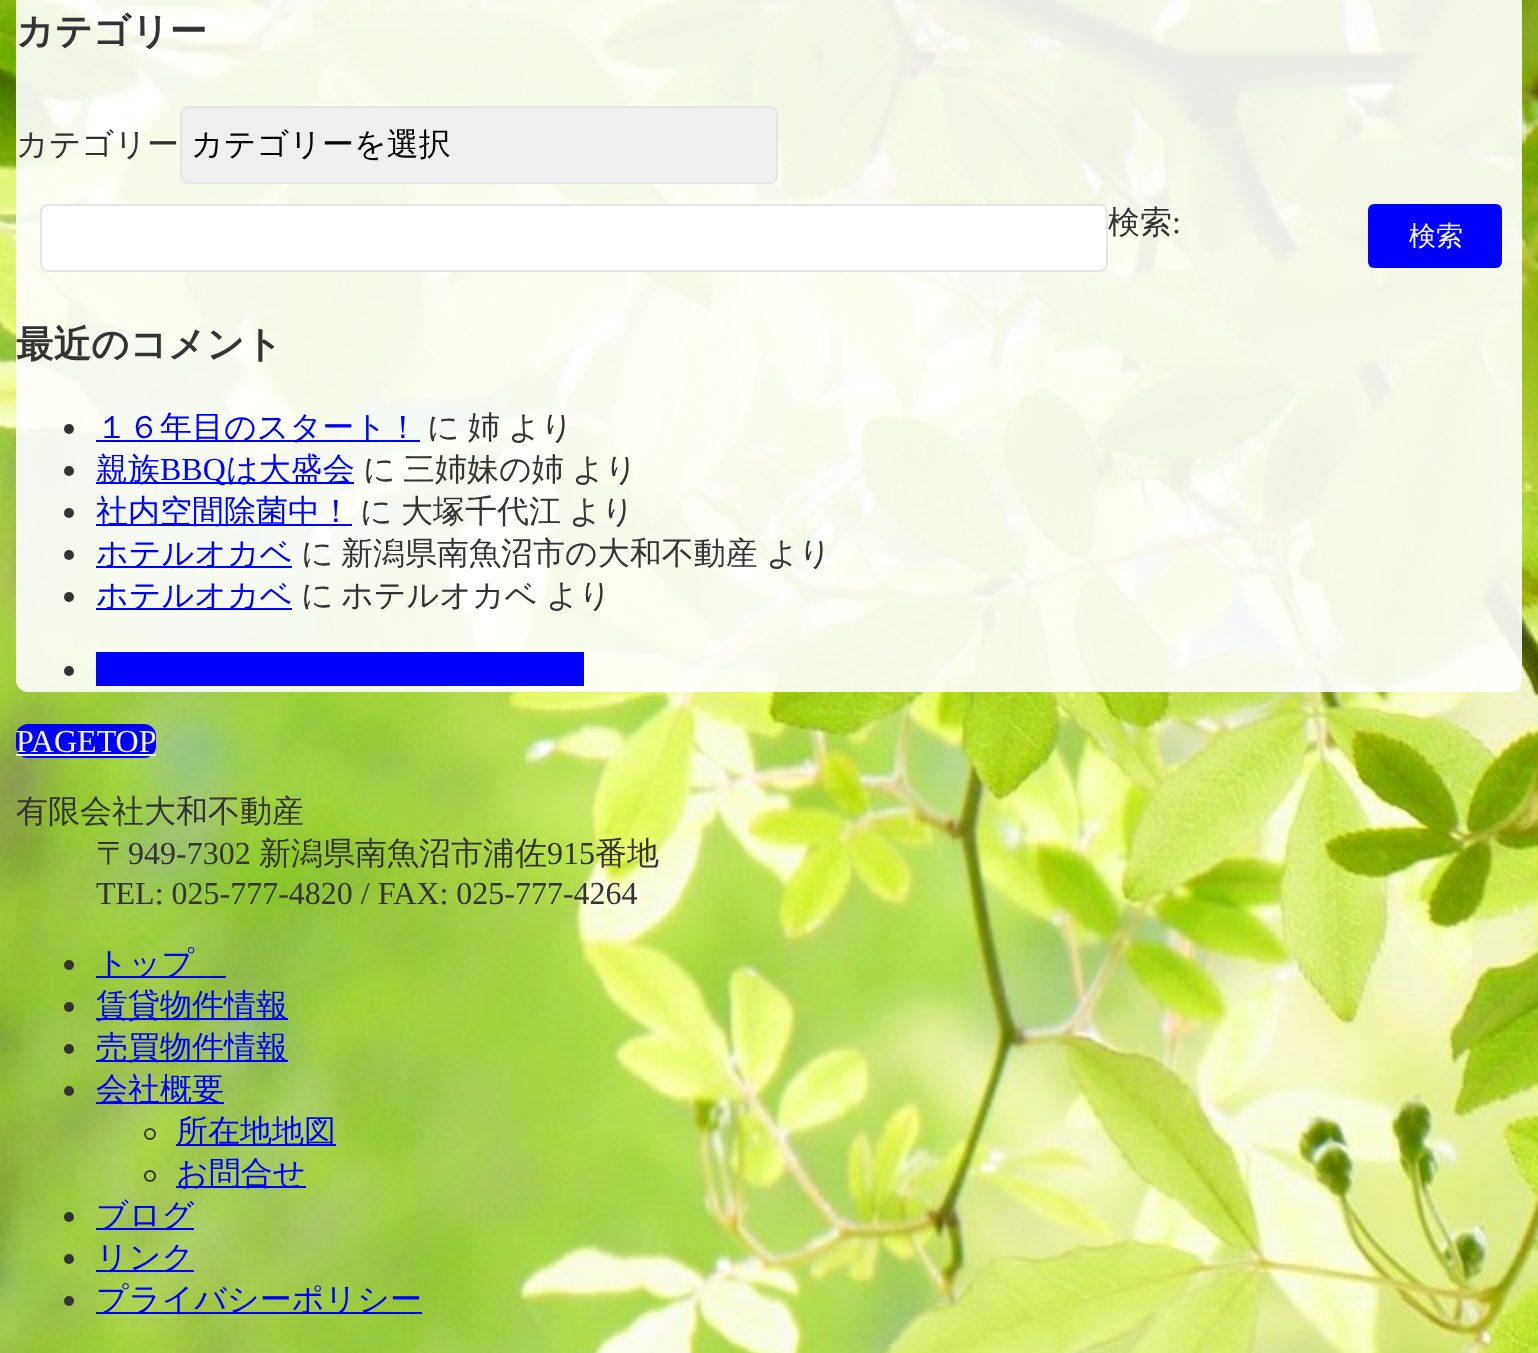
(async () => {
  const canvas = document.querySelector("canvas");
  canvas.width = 1538;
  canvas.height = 1353;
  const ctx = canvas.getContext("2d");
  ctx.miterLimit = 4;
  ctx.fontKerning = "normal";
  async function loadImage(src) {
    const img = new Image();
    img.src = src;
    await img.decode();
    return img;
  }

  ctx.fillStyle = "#ffffff";
  ctx.fillRect(0, 0, 1538, 1353);
  ctx.drawImage(await loadImage("img/1.png"), 0, 0, 1538, 1353);
  ctx.fillStyle = "rgba(255, 255, 255, 0.9)";
  ctx.beginPath();
  ctx.roundRect(16, -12, 1506, 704, 12);
  ctx.fill();
  ctx.fillStyle = "#efefef";
  ctx.beginPath();
  ctx.roundRect(181, 107, 596, 76, 7);
  ctx.fill();
  ctx.strokeStyle = "#e5e5e5";
  ctx.lineWidth = 2;
  ctx.stroke();
  ctx.fillStyle = "#ffffff";
  ctx.beginPath();
  ctx.roundRect(41, 205, 1066, 66, 7);
  ctx.fill();
  ctx.stroke();
  ctx.fillStyle = "#0000ff";
  ctx.beginPath();
  ctx.roundRect(1368, 204, 134, 64, 6);
  ctx.fill();
  ctx.fillStyle = "#333333";
  ctx.beginPath();
  ctx.arc(69, 429, 5, 0, Math.PI * 2);
  ctx.fill();
  ctx.fillStyle = "#0000ff";
  ctx.fillRect(96, 440, 324, 2);
  ctx.fillStyle = "#333333";
  ctx.beginPath();
  ctx.arc(69, 471, 5, 0, Math.PI * 2);
  ctx.fill();
  ctx.fillStyle = "#0000ff";
  ctx.fillRect(96, 482, 258, 2);
  ctx.fillStyle = "#333333";
  ctx.beginPath();
  ctx.arc(69, 513, 5, 0, Math.PI * 2);
  ctx.fill();
  ctx.fillStyle = "#0000ff";
  ctx.fillRect(96, 524, 256, 2);
  ctx.fillStyle = "#333333";
  ctx.beginPath();
  ctx.arc(69, 555, 5, 0, Math.PI * 2);
  ctx.fill();
  ctx.fillStyle = "#0000ff";
  ctx.fillRect(96, 566, 196, 2);
  ctx.fillStyle = "#333333";
  ctx.beginPath();
  ctx.arc(69, 597, 5, 0, Math.PI * 2);
  ctx.fill();
  ctx.fillStyle = "#0000ff";
  ctx.fillRect(96, 608, 196, 2);
  ctx.fillStyle = "#333333";
  ctx.beginPath();
  ctx.arc(69, 671, 5, 0, Math.PI * 2);
  ctx.fill();
  ctx.fillStyle = "#0000ff";
  ctx.fillRect(96, 652, 488, 34);
  ctx.beginPath();
  ctx.roundRect(16, 724, 140, 34, 12);
  ctx.fill();
  ctx.fillStyle = "#f5f5f5";
  ctx.fillRect(16, 754, 140, 2);
  ctx.fillStyle = "#333333";
  ctx.beginPath();
  ctx.arc(69, 965, 5, 0, Math.PI * 2);
  ctx.fill();
  ctx.fillStyle = "#0000ff";
  ctx.fillRect(96, 976, 130, 2);
  ctx.fillStyle = "#333333";
  ctx.beginPath();
  ctx.arc(69, 1007, 5, 0, Math.PI * 2);
  ctx.fill();
  ctx.fillStyle = "#0000ff";
  ctx.fillRect(96, 1018, 192, 2);
  ctx.fillStyle = "#333333";
  ctx.beginPath();
  ctx.arc(69, 1049, 5, 0, Math.PI * 2);
  ctx.fill();
  ctx.fillStyle = "#0000ff";
  ctx.fillRect(96, 1060, 192, 2);
  ctx.fillStyle = "#333333";
  ctx.beginPath();
  ctx.arc(69, 1091, 5, 0, Math.PI * 2);
  ctx.fill();
  ctx.fillStyle = "#0000ff";
  ctx.fillRect(96, 1102, 128, 2);
  ctx.beginPath();
  ctx.arc(150, 1134, 5, 0, Math.PI * 2);
  ctx.strokeStyle = "#333333";
  ctx.stroke();
  ctx.fillRect(176, 1144, 160, 2);
  ctx.beginPath();
  ctx.arc(150, 1176, 5, 0, Math.PI * 2);
  ctx.stroke();
  ctx.fillRect(176, 1186, 130, 2);
  ctx.fillStyle = "#333333";
  ctx.beginPath();
  ctx.arc(69, 1217, 5, 0, Math.PI * 2);
  ctx.fill();
  ctx.fillStyle = "#0000ff";
  ctx.fillRect(96, 1228, 98, 2);
  ctx.fillStyle = "#333333";
  ctx.beginPath();
  ctx.arc(69, 1259, 5, 0, Math.PI * 2);
  ctx.fill();
  ctx.fillStyle = "#0000ff";
  ctx.fillRect(96, 1270, 98, 2);
  ctx.fillStyle = "#333333";
  ctx.beginPath();
  ctx.arc(69, 1301, 5, 0, Math.PI * 2);
  ctx.fill();
  ctx.fillStyle = "#0000ff";
  ctx.fillRect(96, 1312, 326, 2);
  ctx.font = "bold 37.5px WenQuanYi Zen Hei";
  ctx.fillStyle = "#333333";
  ctx.fillText("カテゴリー", 16, 44);
  ctx.font = "500 32px WenQuanYi Zen Hei";
  ctx.fillText("カテゴリー", 16, 155);
  ctx.fillStyle = "#000000";
  ctx.fillText("カテゴリーを選択", 191, 155);
  ctx.fillStyle = "#333333";
  ctx.fillText("検索", 1108, 233);
  ctx.font = "32px Liberation Serif";
  ctx.fillText(":", 1172, 233);
  ctx.font = "500 27px WenQuanYi Zen Hei";
  ctx.fillStyle = "#f5f5f5";
  ctx.fillText("検索", 1409, 245);
  ctx.font = "bold 37.5px WenQuanYi Zen Hei";
  ctx.fillStyle = "#333333";
  ctx.fillText("最近のコメント", 16, 357);
  ctx.font = "500 32px WenQuanYi Zen Hei";
  ctx.fillStyle = "#0000ff";
  ctx.fillText("１６年目のスタート！", 96, 438);
  ctx.fillStyle = "#333333";
  for (const [text, x, y] of [
    ["に", 427, 438],
    ["姉", 468, 438],
    ["より", 508, 438],
  ]) {
    ctx.fillText(text, x, y);
  }
  ctx.fillStyle = "#0000ff";
  ctx.fillText("親族", 96, 480);
  ctx.font = "32px Liberation Serif";
  ctx.fillText("BBQ", 160, 480);
  ctx.font = "500 32px WenQuanYi Zen Hei";
  ctx.fillText("は大盛会", 226, 480);
  ctx.fillStyle = "#333333";
  for (const [text, x, y] of [
    ["に", 363, 480],
    ["三姉妹の姉", 403, 480],
    ["より", 572, 480],
  ]) {
    ctx.fillText(text, x, y);
  }
  ctx.fillStyle = "#0000ff";
  ctx.fillText("社内空間除菌中！", 96, 522);
  ctx.fillStyle = "#333333";
  for (const [text, x, y] of [
    ["に", 360, 522],
    ["大塚千代江", 401, 522],
    ["より", 569, 522],
  ]) {
    ctx.fillText(text, x, y);
  }
  ctx.fillStyle = "#0000ff";
  ctx.fillText("ホテルオカベ", 96, 564);
  ctx.fillStyle = "#333333";
  for (const [text, x, y] of [
    ["に", 301, 564],
    ["新潟県南魚沼市の大和不動産", 341, 564],
    ["より", 766, 564],
  ]) {
    ctx.fillText(text, x, y);
  }
  ctx.fillStyle = "#0000ff";
  ctx.fillText("ホテルオカベ", 96, 606);
  ctx.fillStyle = "#333333";
  for (const [text, x, y] of [
    ["に", 301, 606],
    ["ホテルオカベ", 341, 606],
    ["より", 546, 606],
  ]) {
    ctx.fillText(text, x, y);
  }
  ctx.font = "32px Liberation Serif";
  ctx.fillStyle = "#f5f5f5";
  ctx.fillText("PAGETOP", 16, 752);
  ctx.font = "500 32px WenQuanYi Zen Hei";
  ctx.fillStyle = "#333333";
  ctx.fillText("有限会社大和不動産", 16, 822);
  ctx.fillText("〒", 96, 864);
  ctx.font = "32px Liberation Serif";
  ctx.fillText("949-7302", 128, 864);
  ctx.font = "500 32px WenQuanYi Zen Hei";
  ctx.fillText("新潟県南魚沼市浦佐", 259, 864);
  ctx.font = "32px Liberation Serif";
  ctx.fillText("915", 547, 864);
  ctx.font = "500 32px WenQuanYi Zen Hei";
  ctx.fillText("番地", 595, 864);
  ctx.font = "32px Liberation Serif";
  ctx.fillText("TEL: 025-777-4820 / FAX: 025-777-4264", 96, 904);
  ctx.font = "500 32px WenQuanYi Zen Hei";
  ctx.fillStyle = "#0000ff";
  for (const [text, x, y] of [
    ["トップ", 96, 974],
    ["賃貸物件情報", 96, 1016],
    ["売買物件情報", 96, 1058],
    ["会社概要", 96, 1100],
    ["所在地地図", 176, 1142],
    ["お問合せ", 176, 1184],
    ["ブログ", 96, 1226],
    ["リンク", 96, 1268],
    ["プライバシーポリシー", 96, 1310],
  ]) {
    ctx.fillText(text, x, y);
  }
})();
